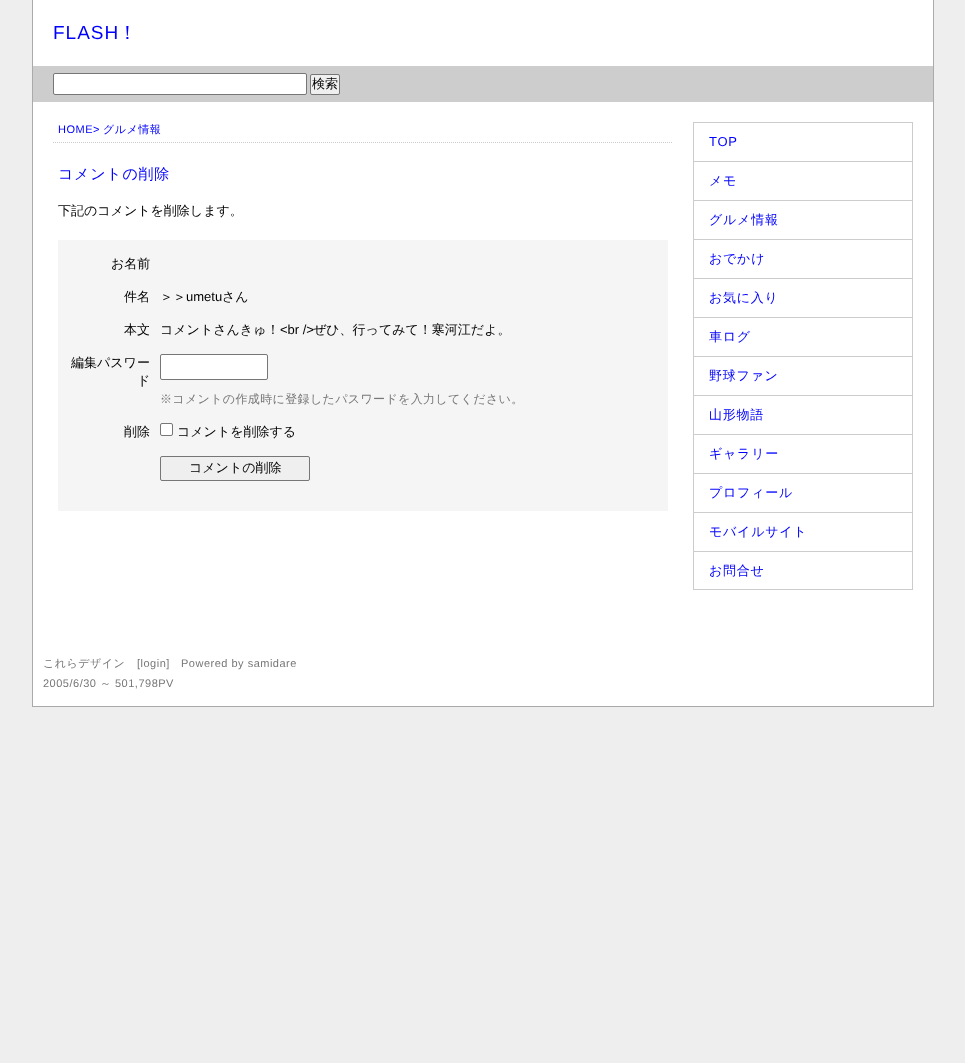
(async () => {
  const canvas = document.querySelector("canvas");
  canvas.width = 965;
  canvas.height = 1063;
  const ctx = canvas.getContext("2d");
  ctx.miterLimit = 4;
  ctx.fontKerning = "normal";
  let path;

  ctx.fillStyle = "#eeeeee";
  ctx.fillRect(0, 0, 965, 1063);
  for (const [x, y, w, h, color] of [
    [33, 0, 900, 706, "#ffffff"],
    [933, 0, 1, 707, "#aaaaaa"],
    [32, 706, 902, 1, "#aaaaaa"],
    [32, 0, 1, 707, "#aaaaaa"],
    [33, 66, 900, 36, "#cdcdcd"],
  ]) {
    ctx.fillStyle = color;
    ctx.fillRect(x, y, w, h);
  }
  ctx.fillStyle = "#ffffff";
  ctx.beginPath();
  ctx.roundRect(53.5, 73.5, 253, 21, 1.5);
  ctx.fill();
  ctx.strokeStyle = "#767676";
  ctx.stroke();
  ctx.fillStyle = "#efefef";
  ctx.beginPath();
  ctx.roundRect(310.5, 74.5, 29, 20, 1.5);
  ctx.fill();
  ctx.stroke();
  path = new Path2D("M53 142.5H673");
  ctx.strokeStyle = "#cccccc";
  ctx.setLineDash([1, 1]);
  ctx.stroke(path);
  ctx.fillStyle = "#f5f5f5";
  ctx.fillRect(58, 240, 610, 271);
  ctx.fillStyle = "#ffffff";
  ctx.beginPath();
  ctx.roundRect(160.5, 354.5, 107, 25, 1.5);
  ctx.fill();
  ctx.strokeStyle = "#767676";
  ctx.setLineDash([]);
  ctx.stroke();
  ctx.beginPath();
  ctx.roundRect(160.5, 423.5, 12, 12, 1.5);
  ctx.fill();
  ctx.stroke();
  ctx.fillStyle = "#efefef";
  ctx.beginPath();
  ctx.roundRect(160.5, 456.5, 149, 24, 1.5);
  ctx.fill();
  ctx.stroke();
  for (const [x, y, w, h, color] of [
    [693, 122, 220, 1, "#cccccc"],
    [912, 122, 1, 468, "#cccccc"],
    [693, 122, 1, 468, "#cccccc"],
    [694, 161, 218, 1, "#cccccc"],
    [694, 200, 218, 1, "#cccccc"],
    [694, 239, 218, 1, "#cccccc"],
    [694, 278, 218, 1, "#cccccc"],
    [694, 317, 218, 1, "#cccccc"],
    [694, 356, 218, 1, "#cccccc"],
    [694, 395, 218, 1, "#cccccc"],
    [694, 434, 218, 1, "#cccccc"],
    [694, 473, 218, 1, "#cccccc"],
    [694, 512, 218, 1, "#cccccc"],
    [694, 551, 218, 1, "#cccccc"],
    [694, 589, 218, 1, "#cccccc"],
  ]) {
    ctx.fillStyle = color;
    ctx.fillRect(x, y, w, h);
  }
  ctx.letterSpacing = "1px";
  ctx.font = "19px Liberation Sans";
  ctx.fillStyle = "#0000ff";
  ctx.fillText("FLASH", 53, 39);
  ctx.font = "500 19px WenQuanYi Zen Hei";
  ctx.fillText("！", 118, 39);
  ctx.letterSpacing = "0px";
  ctx.font = "500 13px WenQuanYi Zen Hei";
  ctx.fillStyle = "#000000";
  ctx.fillText("検索", 312, 88);
  ctx.letterSpacing = "0.5px";
  ctx.font = "11px Liberation Sans";
  ctx.fillStyle = "#0000ff";
  ctx.fillText("HOME>", 58, 133);
  ctx.font = "500 11px WenQuanYi Zen Hei";
  ctx.fillText("グルメ情報", 103, 133);
  ctx.letterSpacing = "0.75px";
  ctx.font = "500 15px WenQuanYi Zen Hei";
  ctx.fillText("コメントの削除", 58, 179);
  ctx.letterSpacing = "0px";
  ctx.font = "500 13px WenQuanYi Zen Hei";
  ctx.fillStyle = "#000000";
  for (const [text, x, y] of [
    ["下記のコメントを削除します。", 58, 215],
    ["お名前", 111, 268],
    ["件名", 124, 301],
    ["＞＞", 160, 301],
  ]) {
    ctx.fillText(text, x, y);
  }
  ctx.font = "13px Liberation Sans";
  ctx.fillText("umetu", 186, 301);
  ctx.font = "500 13px WenQuanYi Zen Hei";
  for (const [text, x, y] of [
    ["さん", 222, 301],
    ["本文", 124, 334],
    ["コメントさんきゅ！", 160, 334],
  ]) {
    ctx.fillText(text, x, y);
  }
  ctx.font = "13px Liberation Sans";
  ctx.fillText("<br />", 280, 334);
  ctx.font = "500 13px WenQuanYi Zen Hei";
  for (const [text, x, y] of [
    ["ぜひ、行ってみて！寒河江だよ。", 313, 334],
    ["編集パスワー", 71, 367],
    ["ド", 137, 385],
  ]) {
    ctx.fillText(text, x, y);
  }
  ctx.letterSpacing = "0.35px";
  ctx.font = "500 12px WenQuanYi Zen Hei";
  ctx.fillStyle = "#777777";
  ctx.fillText("※コメントの作成時に登録したパスワードを入力してください。", 160, 403);
  ctx.letterSpacing = "0px";
  ctx.font = "500 13px WenQuanYi Zen Hei";
  ctx.fillStyle = "#000000";
  for (const [text, x, y] of [
    ["削除", 124, 436],
    ["コメントを削除する", 177, 436],
    ["コメントの削除", 189, 472],
  ]) {
    ctx.fillText(text, x, y);
  }
  ctx.letterSpacing = "0.75px";
  ctx.font = "13px Liberation Sans";
  ctx.fillStyle = "#0000ff";
  ctx.fillText("TOP", 709, 146);
  ctx.font = "500 13px WenQuanYi Zen Hei";
  for (const [text, x, y] of [
    ["メモ", 709, 185],
    ["グルメ情報", 709, 224],
    ["おでかけ", 709, 263],
    ["お気に入り", 709, 302],
    ["車ログ", 709, 341],
    ["野球ファン", 709, 380],
    ["山形物語", 709, 419],
    ["ギャラリー", 709, 458],
    ["プロフィール", 709, 497],
    ["モバイルサイト", 709, 536],
    ["お問合せ", 709, 575],
  ]) {
    ctx.fillText(text, x, y);
  }
  ctx.letterSpacing = "0.5px";
  ctx.font = "500 11px WenQuanYi Zen Hei";
  ctx.fillStyle = "#777777";
  ctx.fillText("これらデザイン", 43, 667);
  ctx.font = "11px Liberation Sans";
  for (const [text, x, y] of [
    ["[login]", 137, 667],
    ["Powered by samidare", 181, 667],
    ["2005/6/30", 43, 687],
  ]) {
    ctx.fillText(text, x, y);
  }
  ctx.font = "500 11px WenQuanYi Zen Hei";
  ctx.fillText("～", 100, 687);
  ctx.font = "11px Liberation Sans";
  ctx.fillText("501,798PV", 115, 687);
})();
